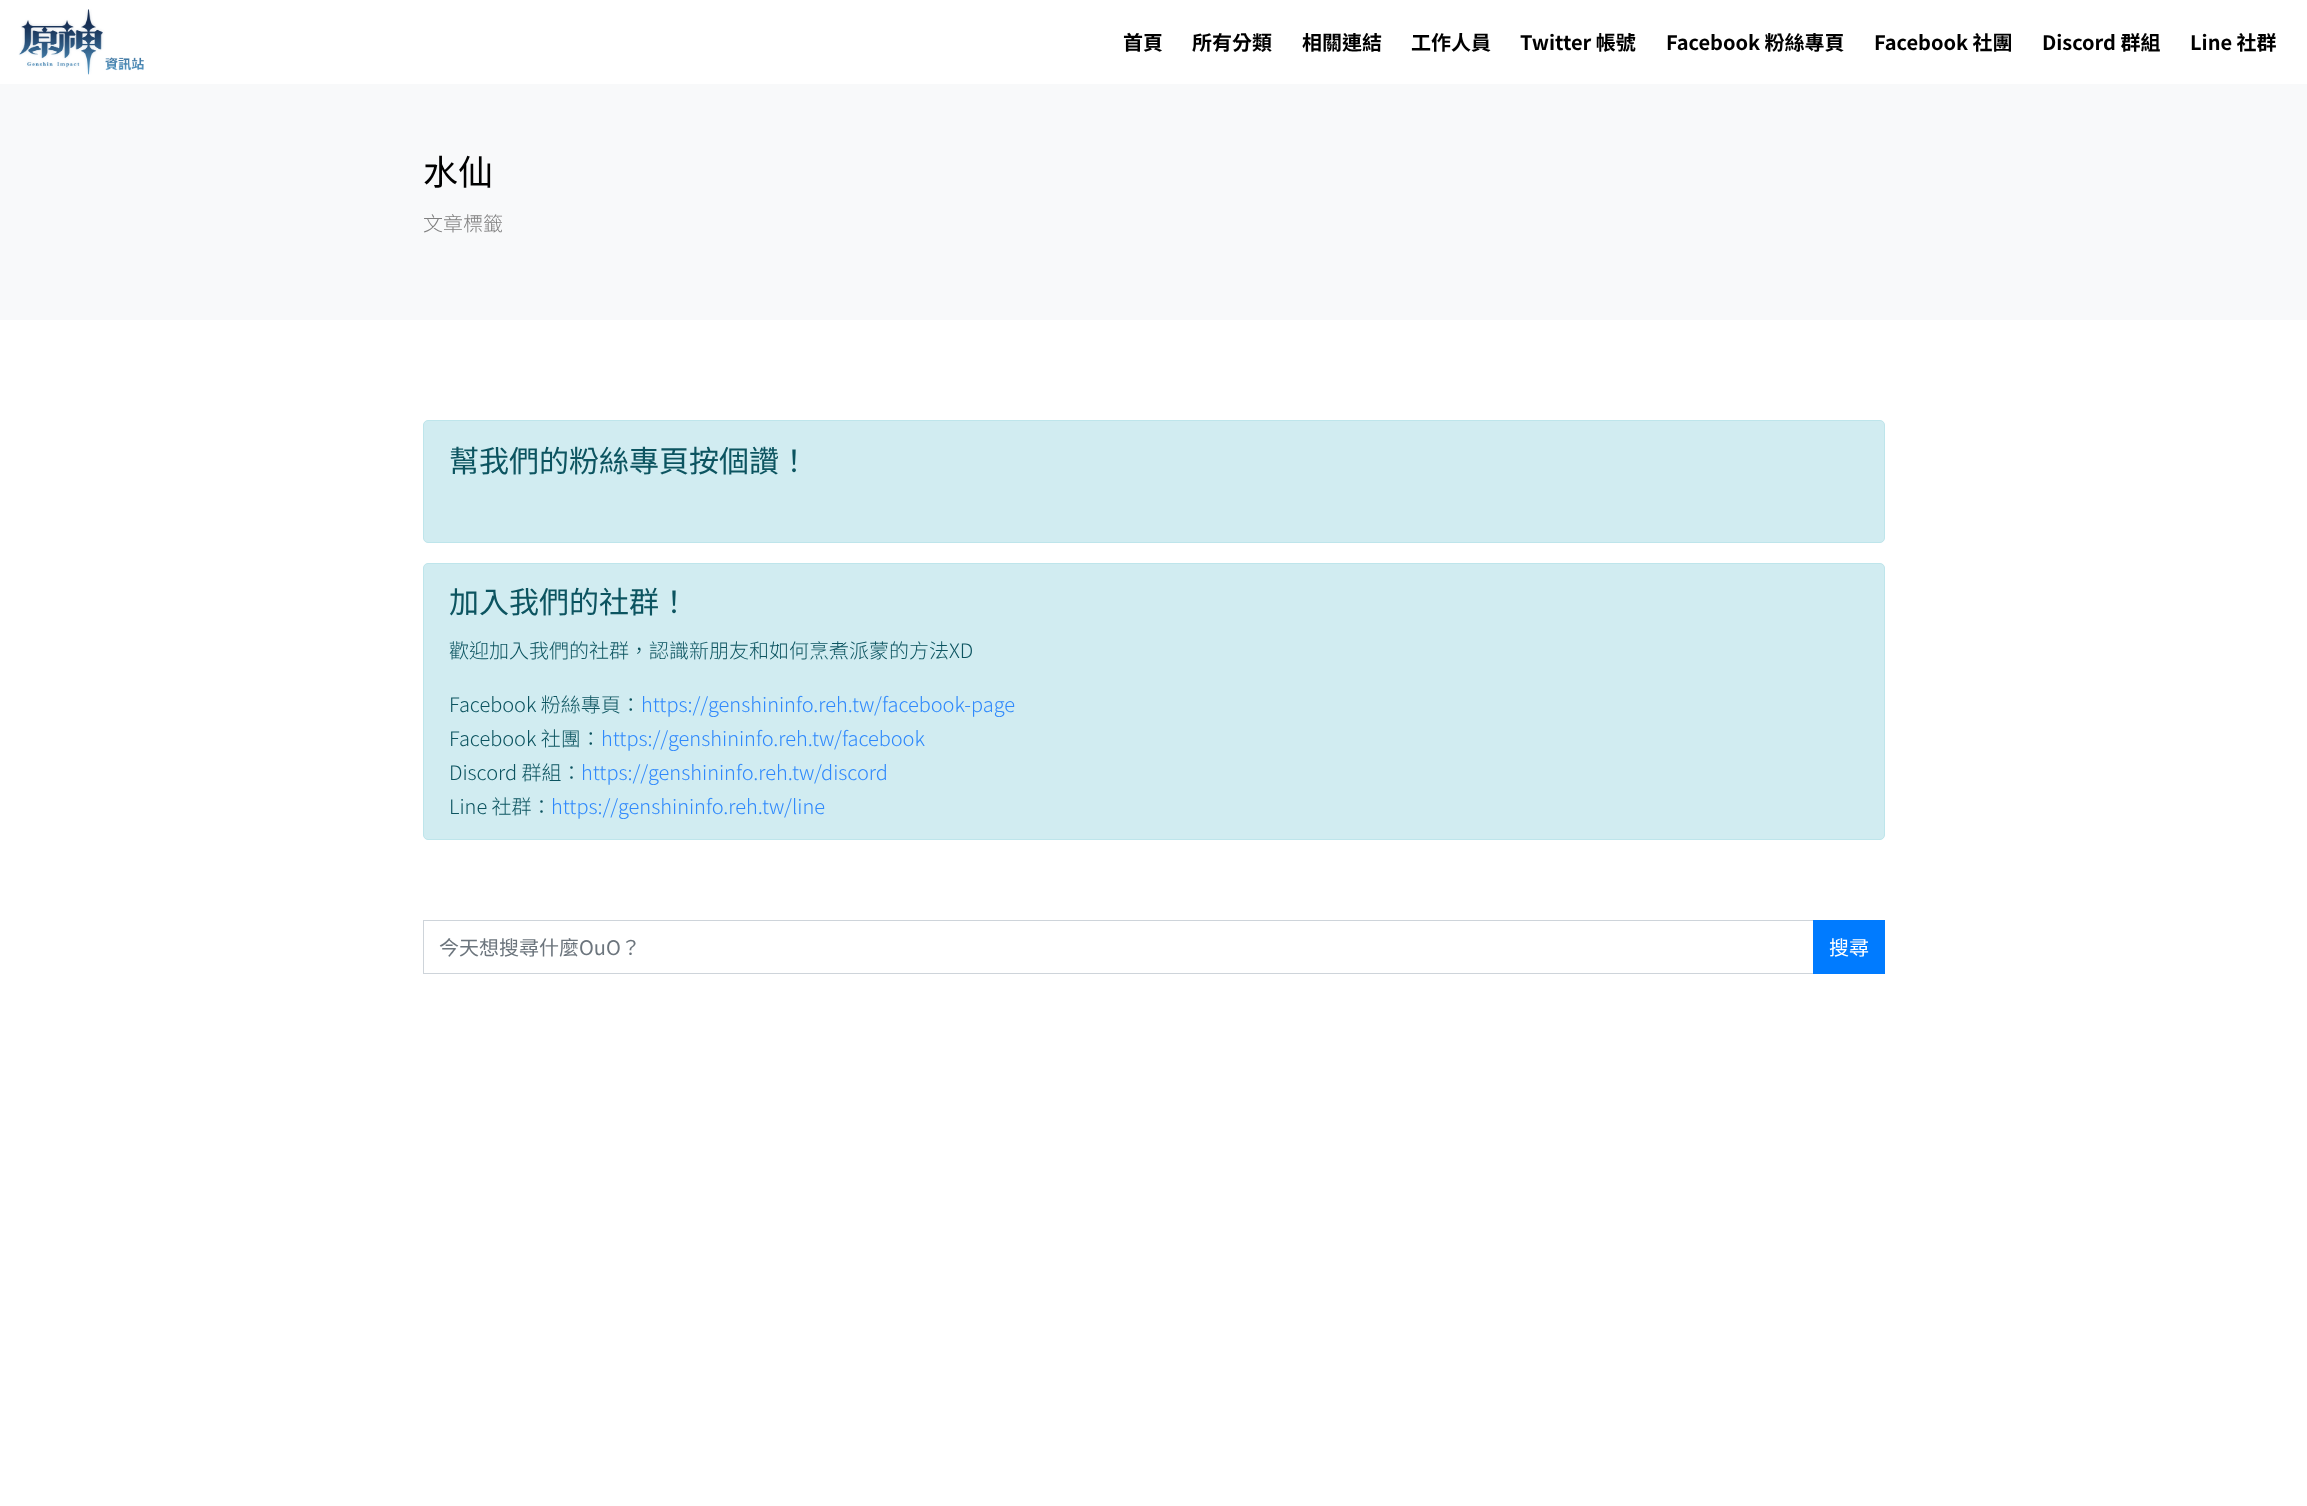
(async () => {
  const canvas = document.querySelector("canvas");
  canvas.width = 2307;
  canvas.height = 1506;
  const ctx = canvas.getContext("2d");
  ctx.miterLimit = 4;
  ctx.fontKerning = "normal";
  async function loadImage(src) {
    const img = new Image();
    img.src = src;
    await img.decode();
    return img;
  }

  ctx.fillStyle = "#ffffff";
  ctx.fillRect(0, 0, 2307, 1506);
  ctx.drawImage(await loadImage("img/1.png"), 18, 9, 126, 66);
  ctx.fillStyle = "#f8f9fa";
  ctx.fillRect(0, 84, 2307, 236);
  ctx.fillStyle = "#d1ecf1";
  ctx.beginPath();
  ctx.roundRect(423.5, 420.5, 1461, 122, 4.5);
  ctx.fill();
  ctx.strokeStyle = "#bee5eb";
  ctx.stroke();
  ctx.beginPath();
  ctx.roundRect(423.5, 563.5, 1461, 276, 4.5);
  ctx.fill();
  ctx.stroke();
  ctx.strokeStyle = "#ced4da";
  ctx.strokeRect(423.5, 920.5, 1390, 53);
  ctx.fillStyle = "#007bff";
  ctx.fillRect(1813, 920, 72, 54);
  ctx.font = "bold 20px Noto Sans TC";
  ctx.fillStyle = "#000000";
  for (const [text, x, y] of [
    ["首頁", 1123, 50],
    ["所有分類", 1192, 50],
    ["相關連結", 1302, 50],
    ["工作人員", 1411, 50],
    ["Twitter 帳號", 1520, 50],
    ["Facebook 粉絲專頁", 1666, 50],
    ["Facebook 社團", 1874, 50],
    ["Discord 群組", 2042, 50],
    ["Line 社群", 2190, 50],
  ]) {
    ctx.fillText(text, x, y);
  }
  ctx.font = "35px Noto Sans TC";
  ctx.fillText("水仙", 423, 185);
  ctx.font = "300 20px Noto Sans TC";
  ctx.fillStyle = "#808080";
  ctx.fillText("文章標籤", 423, 231);
  ctx.font = "30px Noto Sans TC";
  ctx.fillStyle = "#0c5460";
  ctx.fillText("幫我們的粉絲專頁按個讚！", 449, 472);
  ctx.fillText("加入我們的社群！", 449, 613);
  ctx.font = "300 20px Noto Sans TC";
  ctx.fillText("歡迎加入我們的社群，認識新朋友和如何烹煮派蒙的方法XD", 449, 658);
  ctx.fillText("Facebook 粉絲專頁：", 449, 712);
  ctx.fillStyle = "#2f89fc";
  ctx.fillText("https://genshininfo.reh.tw/facebook-page", 641, 712);
  ctx.fillStyle = "#0c5460";
  ctx.fillText("Facebook 社團：", 449, 746);
  ctx.fillStyle = "#2f89fc";
  ctx.fillText("https://genshininfo.reh.tw/facebook", 601, 746);
  ctx.fillStyle = "#0c5460";
  ctx.fillText("Discord 群組：", 449, 780);
  ctx.fillStyle = "#2f89fc";
  ctx.fillText("https://genshininfo.reh.tw/discord", 581, 780);
  ctx.fillStyle = "#0c5460";
  ctx.fillText("Line 社群：", 449, 814);
  ctx.fillStyle = "#2f89fc";
  ctx.fillText("https://genshininfo.reh.tw/line", 551, 814);
  ctx.font = "20px Noto Sans TC";
  ctx.fillStyle = "#6c757d";
  ctx.fillText("今天想搜尋什麼OuO？", 439, 955);
  ctx.fillStyle = "#ffffff";
  ctx.fillText("搜尋", 1829, 955);
})();
